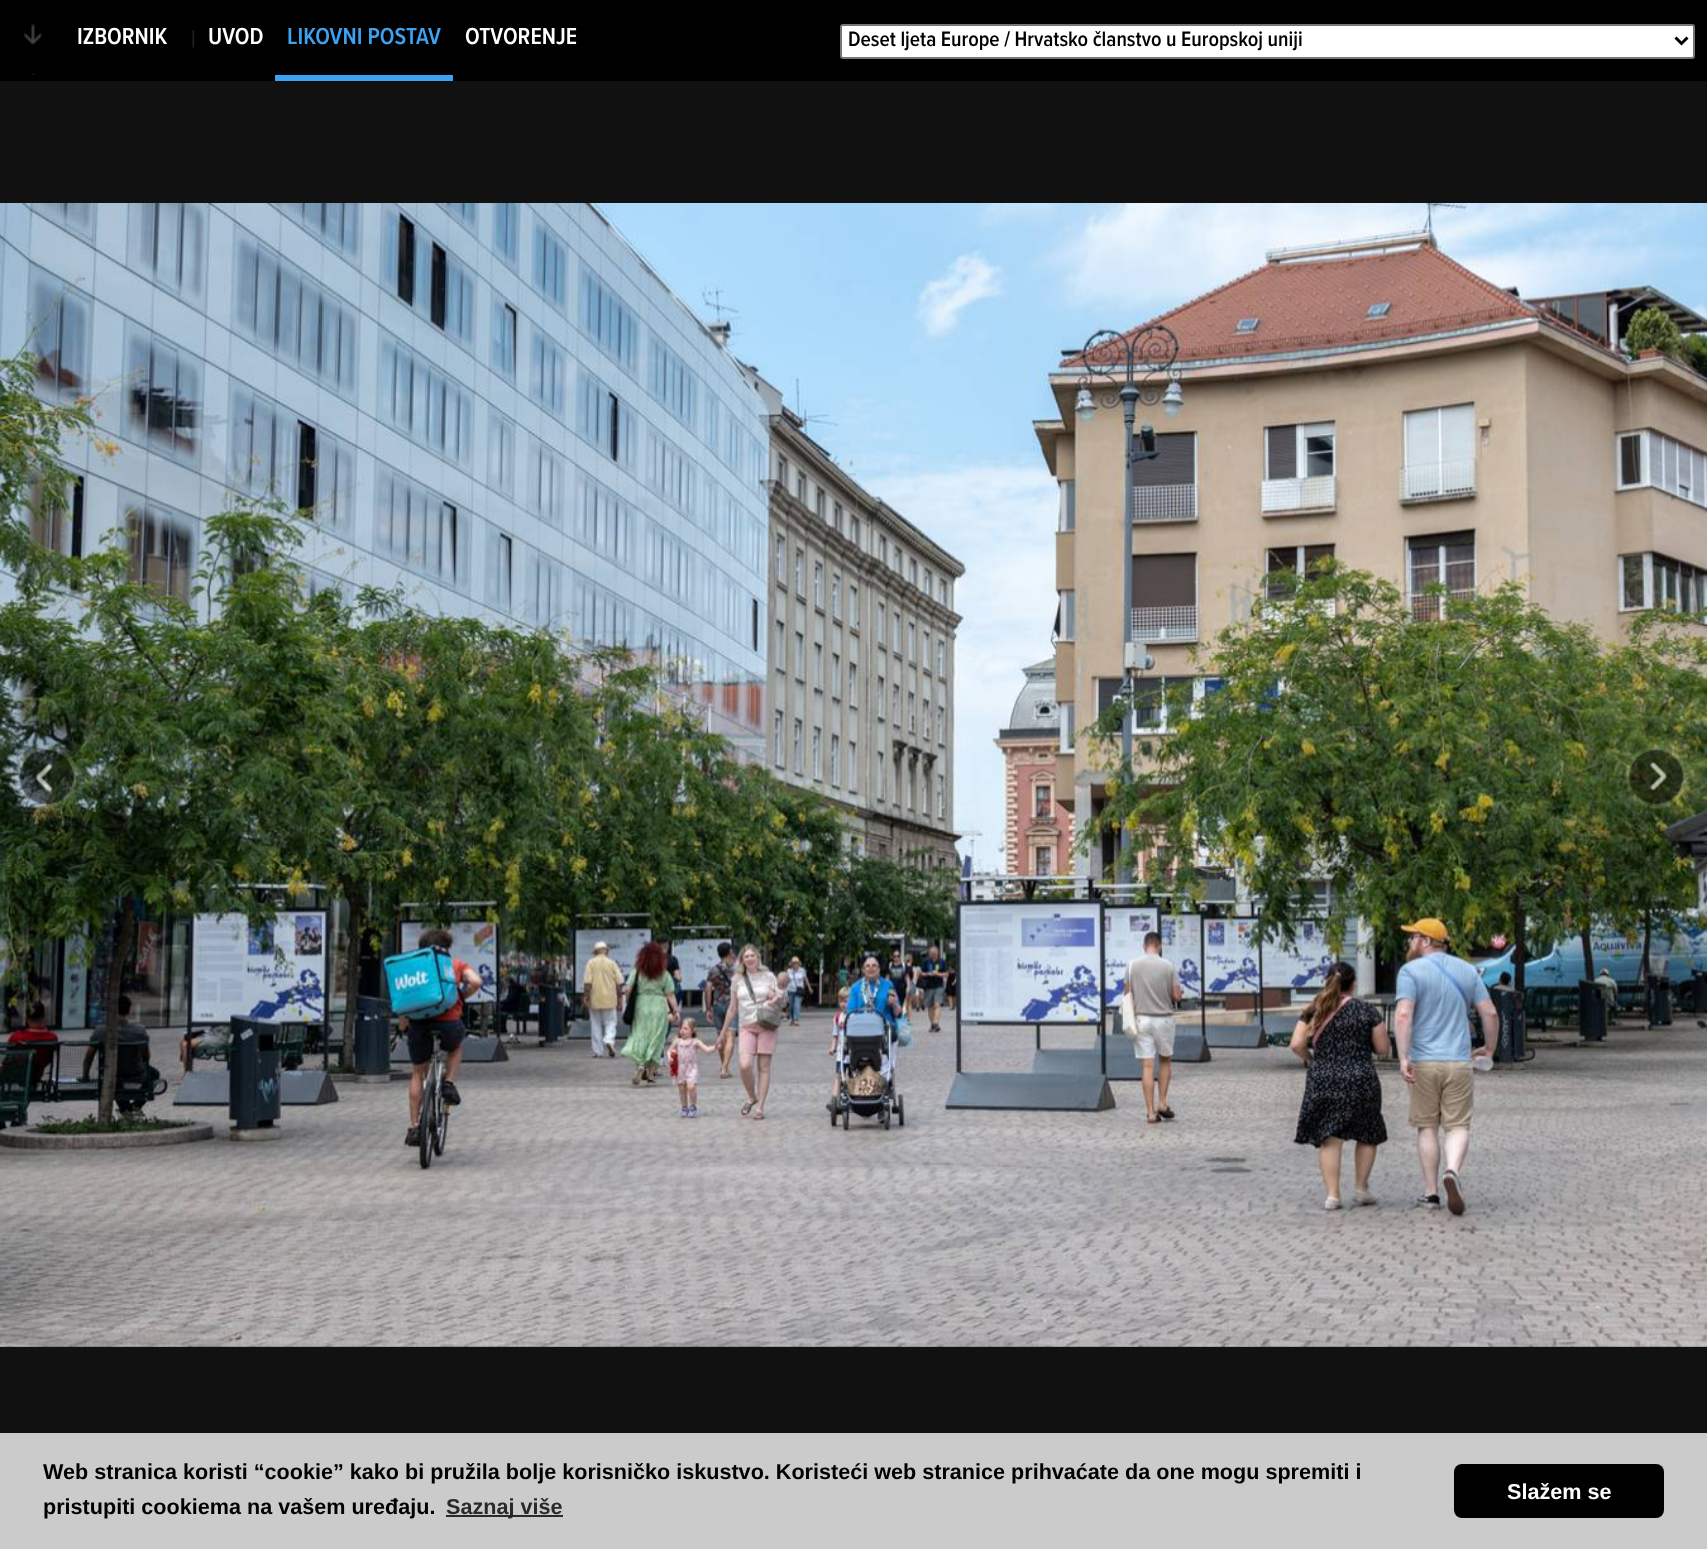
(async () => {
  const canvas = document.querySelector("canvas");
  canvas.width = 1707;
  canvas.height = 1549;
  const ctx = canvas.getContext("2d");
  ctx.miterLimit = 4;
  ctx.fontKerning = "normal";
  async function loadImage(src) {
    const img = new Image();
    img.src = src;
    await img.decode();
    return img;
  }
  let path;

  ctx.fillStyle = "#111111";
  ctx.fillRect(0, 0, 1707, 1549);
  ctx.fillStyle = "#000000";
  ctx.fillRect(0, 0, 1707, 81);
  ctx.drawImage(await loadImage("img/1.png"), 24, 24, 18, 51);
  ctx.fillStyle = "#3ca2f1";
  ctx.fillRect(275, 75, 178, 6);
  ctx.fillStyle = "#ffffff";
  ctx.beginPath();
  ctx.roundRect(841, 25, 853, 33, 2);
  ctx.fill();
  ctx.strokeStyle = "#767676";
  ctx.lineWidth = 2;
  ctx.stroke();
  path = new Path2D("M1675.5 37.5L1681.5 43.5L1687.5 37.5");
  ctx.strokeStyle = "#000000";
  ctx.lineWidth = 3;
  ctx.stroke(path);
  ctx.drawImage(await loadImage("img/2.png"), 0, 203, 1707, 1144);
  ctx.drawImage(await loadImage("img/3.png"), 15, 745, 62, 64);
  ctx.drawImage(await loadImage("img/4.png"), 1624, 745, 64, 64);
  ctx.fillStyle = "#cbcbcb";
  ctx.fillRect(0, 1433, 1707, 116);
  ctx.fillStyle = "#292929";
  ctx.fillRect(446, 1515, 117, 2);
  ctx.fillStyle = "#000000";
  ctx.beginPath();
  ctx.roundRect(1454, 1464, 210, 54, 8);
  ctx.fill();
  ctx.font = "600 24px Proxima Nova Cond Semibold";
  ctx.fillStyle = "#ffffff";
  ctx.fillText("IZBORNIK", 77, 44);
  ctx.fillStyle = "#222222";
  ctx.fillText("|", 191, 47);
  ctx.fillStyle = "#ffffff";
  ctx.fillText("UVOD", 208, 44);
  ctx.fillStyle = "#3ca2f1";
  ctx.fillText("LIKOVNI POSTAV", 287, 44);
  ctx.fillStyle = "#ffffff";
  ctx.fillText("OTVORENJE", 465, 44);
  ctx.font = "600 21.6px Proxima Nova Cond Semibold";
  ctx.fillStyle = "#000000";
  ctx.fillText("Deset ljeta Europe / Hrvatsko članstvo u Europskoj uniji", 848, 46);
  ctx.font = "bold 21.6px Liberation Sans";
  ctx.fillText("Web stranica koristi “cookie” kako bi pružila bolje korisničko iskustvo. Koristeći web stranice prihvaćate da one mogu spremiti i", 43, 1479);
  ctx.fillText("pristupiti cookiema na vašem uređaju.", 43, 1514);
  ctx.fillStyle = "#292929";
  ctx.fillText("Saznaj više", 446, 1514);
  ctx.fillStyle = "#ffffff";
  ctx.fillText("Slažem se", 1507, 1499);
})();
